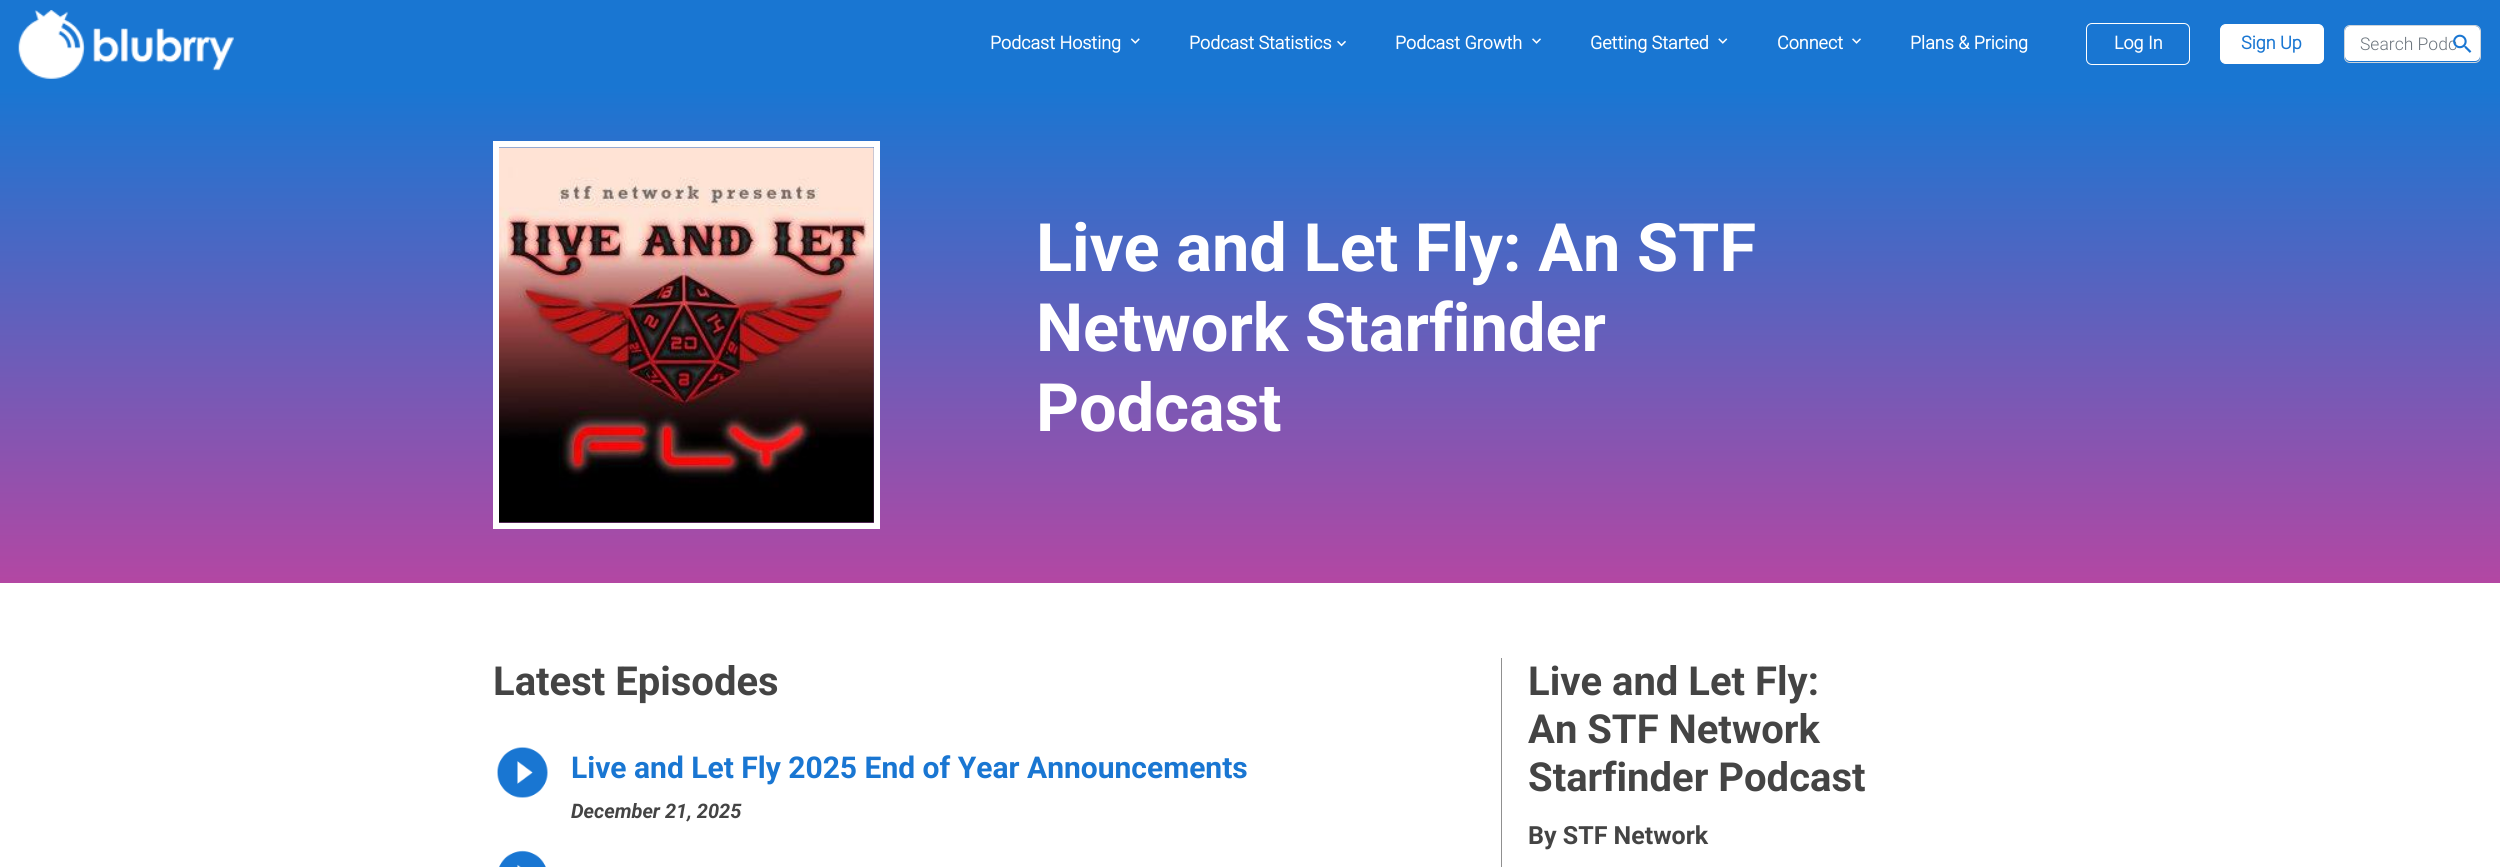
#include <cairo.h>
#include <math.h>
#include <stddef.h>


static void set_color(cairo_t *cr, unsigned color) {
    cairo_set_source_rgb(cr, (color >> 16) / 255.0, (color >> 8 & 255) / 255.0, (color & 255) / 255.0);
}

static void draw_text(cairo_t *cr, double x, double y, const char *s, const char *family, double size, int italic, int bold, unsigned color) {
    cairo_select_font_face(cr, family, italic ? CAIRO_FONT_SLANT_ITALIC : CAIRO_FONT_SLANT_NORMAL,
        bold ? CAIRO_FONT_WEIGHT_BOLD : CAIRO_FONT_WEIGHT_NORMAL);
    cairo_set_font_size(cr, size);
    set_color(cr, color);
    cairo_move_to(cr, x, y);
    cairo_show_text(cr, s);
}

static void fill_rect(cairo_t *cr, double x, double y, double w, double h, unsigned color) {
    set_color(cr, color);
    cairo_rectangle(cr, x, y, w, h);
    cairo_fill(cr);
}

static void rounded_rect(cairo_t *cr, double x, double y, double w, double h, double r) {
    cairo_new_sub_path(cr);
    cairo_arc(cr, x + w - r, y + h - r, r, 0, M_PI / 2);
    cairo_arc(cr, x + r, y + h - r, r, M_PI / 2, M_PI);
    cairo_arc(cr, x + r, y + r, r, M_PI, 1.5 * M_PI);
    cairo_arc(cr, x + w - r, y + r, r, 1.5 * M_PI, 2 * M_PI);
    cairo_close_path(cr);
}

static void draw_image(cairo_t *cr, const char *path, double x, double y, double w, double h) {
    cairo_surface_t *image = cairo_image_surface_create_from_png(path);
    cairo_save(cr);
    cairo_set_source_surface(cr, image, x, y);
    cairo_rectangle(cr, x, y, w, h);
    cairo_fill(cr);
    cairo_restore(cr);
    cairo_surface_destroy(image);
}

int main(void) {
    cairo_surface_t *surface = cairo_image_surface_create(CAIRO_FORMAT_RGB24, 2500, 867);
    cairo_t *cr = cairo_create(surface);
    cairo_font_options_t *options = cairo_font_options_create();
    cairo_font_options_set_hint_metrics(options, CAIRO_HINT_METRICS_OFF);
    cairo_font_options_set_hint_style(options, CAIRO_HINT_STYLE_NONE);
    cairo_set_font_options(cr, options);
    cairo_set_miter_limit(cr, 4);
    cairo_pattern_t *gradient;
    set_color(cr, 0xFFFFFF);
    cairo_paint(cr);
    fill_rect(cr, 0, 0, 2500, 88, 0x1976D2);
    draw_image(cr, "assets/img1.png", 18, 10, 216, 69);
    draw_text(cr, 990, 49, "Podcast Hosting", "Roboto", 18, 0, 1, 0xFFFFFF);
    draw_image(cr, "assets/img2.png", 1130, 38, 10, 6);
    draw_text(cr, 1189, 49, "Podcast Statistics", "Roboto", 18, 0, 1, 0xFFFFFF);
    draw_image(cr, "assets/img3.png", 1337, 40, 9, 7);
    draw_text(cr, 1395, 49, "Podcast Growth", "Roboto", 18, 0, 1, 0xFFFFFF);
    draw_image(cr, "assets/img4.png", 1532, 38, 9, 6);
    draw_text(cr, 1590, 49, "Getting Started", "Roboto", 18, 0, 1, 0xFFFFFF);
    draw_image(cr, "assets/img5.png", 1718, 38, 10, 6);
    draw_text(cr, 1777, 49, "Connect", "Roboto", 18, 0, 1, 0xFFFFFF);
    draw_image(cr, "assets/img4.png", 1852, 38, 9, 6);
    draw_text(cr, 1910, 49, "Plans & Pricing", "Roboto", 18, 0, 1, 0xFFFFFF);
    rounded_rect(cr, 2086.5, 23.5, 103, 41, 5.5);
    cairo_set_line_width(cr, 1);
    cairo_stroke(cr);
    draw_text(cr, 2114, 49, "Log In", "Roboto", 18, 0, 1, 0xFFFFFF);
    rounded_rect(cr, 2220.5, 24.5, 103, 39, 5.5);
    cairo_fill_preserve(cr);
    cairo_stroke(cr);
    draw_text(cr, 2241, 49, "Sign Up", "Roboto", 18, 0, 1, 0x1976D2);
    set_color(cr, 0xFFFFFF);
    rounded_rect(cr, 2345, 26, 135, 35, 5);
    cairo_fill(cr);
    rounded_rect(cr, 2344.5, 25.5, 136, 37, 5.5);
    set_color(cr, 0xCED4DA);
    cairo_stroke(cr);
    draw_text(cr, 2360, 50, "Search Podc", "Roboto Light", 17.5, 0, 0, 0x6C757D);
    draw_image(cr, "assets/img6.png", 2453, 34, 19, 19);
    gradient = cairo_pattern_create_linear(1250, 87, 1250, 583);
    cairo_pattern_add_color_stop_rgba(gradient, 0, 0.098, 0.463, 0.824, 1);
    cairo_pattern_add_color_stop_rgba(gradient, 1, 0.702, 0.278, 0.639, 1);
    cairo_set_source(cr, gradient);
    cairo_pattern_destroy(gradient);
    cairo_rectangle(cr, 0, 88, 2500, 495);
    cairo_fill(cr);
    draw_image(cr, "assets/img7.png", 499, 147, 375, 376);
    cairo_rectangle(cr, 496, 144, 381, 382);
    set_color(cr, 0xFFFFFF);
    cairo_set_line_width(cr, 6);
    cairo_stroke(cr);
    draw_text(cr, 1036, 271, "Live and Let Fly: An STF", "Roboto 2", 66.75, 0, 1, 0xFFFFFF);
    draw_text(cr, 1036, 351, "Network Starfinder", "Roboto 2", 66.75, 0, 1, 0xFFFFFF);
    draw_text(cr, 1036, 431, "Podcast", "Roboto 2", 66.75, 0, 1, 0xFFFFFF);
    fill_rect(cr, 1501, 658, 1, 209, 0x909090);
    draw_text(cr, 493, 695, "Latest Episodes", "Roboto 2", 40, 0, 1, 0x444444);
    draw_image(cr, "assets/img8.png", 497, 747, 51, 51);
    draw_text(cr, 571, 778, "Live and Let Fly 2025 End of Year Announcements", "Roboto 2", 30, 0, 1, 0x1976D2);
    draw_text(cr, 571, 818, "December 21, 2025", "Roboto", 20, 1, 1, 0x444444);
    draw_image(cr, "assets/img9.png", 499, 850, 47, 17);
    draw_text(cr, 1528, 695, "Live and Let Fly:", "Roboto 2", 40, 0, 1, 0x444444);
    draw_text(cr, 1528, 743, "An STF Network", "Roboto 2", 40, 0, 1, 0x444444);
    draw_text(cr, 1528, 791, "Starfinder Podcast", "Roboto 2", 40, 0, 1, 0x444444);
    draw_text(cr, 1528, 844, "By STF Network", "Roboto 2", 25, 0, 1, 0x444444);
    cairo_surface_write_to_png(surface, "output.png");
    cairo_font_options_destroy(options);
    cairo_destroy(cr);
    cairo_surface_destroy(surface);
    return 0;
}
